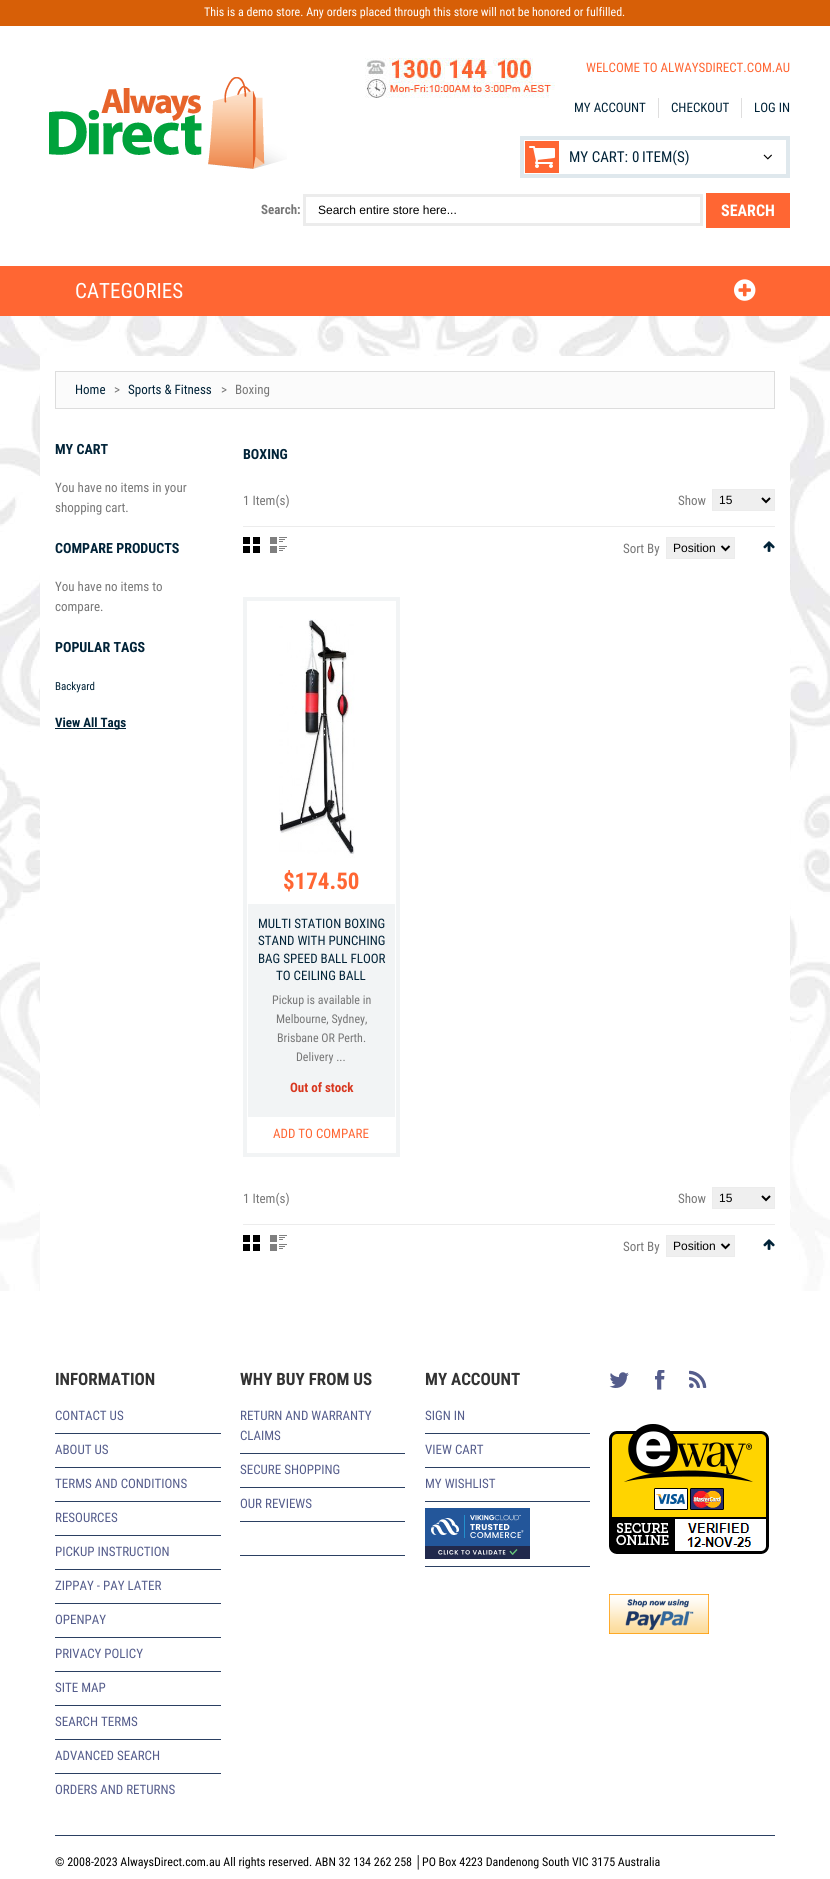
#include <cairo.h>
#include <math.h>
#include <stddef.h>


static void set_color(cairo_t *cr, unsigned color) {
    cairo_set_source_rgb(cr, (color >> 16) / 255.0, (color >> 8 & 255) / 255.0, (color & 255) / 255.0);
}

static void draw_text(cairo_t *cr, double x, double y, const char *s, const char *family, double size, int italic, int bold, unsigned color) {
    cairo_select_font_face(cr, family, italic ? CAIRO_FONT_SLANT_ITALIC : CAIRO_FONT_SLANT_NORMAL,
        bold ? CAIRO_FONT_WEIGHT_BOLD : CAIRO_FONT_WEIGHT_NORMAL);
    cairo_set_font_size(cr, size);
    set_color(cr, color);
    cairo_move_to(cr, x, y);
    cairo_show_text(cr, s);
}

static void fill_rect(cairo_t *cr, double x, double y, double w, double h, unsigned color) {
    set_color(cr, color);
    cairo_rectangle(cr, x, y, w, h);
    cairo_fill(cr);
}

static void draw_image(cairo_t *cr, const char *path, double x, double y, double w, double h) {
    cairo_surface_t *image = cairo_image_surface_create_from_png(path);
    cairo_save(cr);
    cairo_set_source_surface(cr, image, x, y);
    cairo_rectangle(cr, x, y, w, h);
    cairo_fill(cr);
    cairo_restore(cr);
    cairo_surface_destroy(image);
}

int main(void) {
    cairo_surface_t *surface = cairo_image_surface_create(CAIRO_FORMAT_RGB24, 830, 1879);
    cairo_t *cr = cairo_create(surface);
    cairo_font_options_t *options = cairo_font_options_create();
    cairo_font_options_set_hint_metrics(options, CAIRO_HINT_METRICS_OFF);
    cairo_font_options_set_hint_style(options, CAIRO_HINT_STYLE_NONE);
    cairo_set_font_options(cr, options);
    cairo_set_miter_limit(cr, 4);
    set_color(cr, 0xD75F07);
    cairo_paint(cr);
    draw_text(cr, 204, 16, "This is a demo store. Any orders placed through this store will not be honored or fulfilled.", "Roboto Condensed", 12, 0, 0, 0xFFFFFF);
    fill_rect(cr, 0, 26, 830, 240, 0xFFFFFF);
    draw_image(cr, "assets/img1.png", 365, 58, 190, 40);
    draw_text(cr, 586, 72, "WELCOME TO ALWAYSDIRECT.COM.AU", "Roboto Condensed", 13, 0, 0, 0xFF6633);
    draw_image(cr, "assets/img2.png", 49, 77, 238, 92);
    draw_text(cr, 574, 112, "MY ACCOUNT", "Roboto Condensed", 13, 0, 0, 0x012338);
    fill_rect(cr, 658, 98, 1, 20, 0xDFDEDE);
    draw_text(cr, 671, 112, "CHECKOUT", "Roboto Condensed", 13, 0, 0, 0x012338);
    fill_rect(cr, 741, 98, 1, 20, 0xDFDEDE);
    draw_text(cr, 754, 112, "LOG IN", "Roboto Condensed", 13, 0, 0, 0x012338);
    cairo_rectangle(cr, 522, 138, 266, 38);
    set_color(cr, 0xDFE8ED);
    cairo_set_line_width(cr, 4);
    cairo_stroke(cr);
    fill_rect(cr, 525, 141, 34, 32, 0xFF6633);
    draw_image(cr, "assets/img3.png", 529, 146, 26, 22);
    draw_text(cr, 569, 162, "MY CART:", "Roboto Condensed", 15, 0, 0, 0x012338);
    draw_text(cr, 632, 162, "0", "Roboto Condensed", 15, 0, 0, 0x012338);
    draw_text(cr, 642, 162, "ITEM(S)", "Roboto Condensed", 15, 0, 0, 0x012338);
    draw_image(cr, "assets/img4.png", 763, 154, 9, 6);
    draw_text(cr, 261, 214, "Search:", "Roboto Condensed", 13, 0, 1, 0x777777);
    cairo_rectangle(cr, 304.5, 195.5, 397, 29);
    set_color(cr, 0xECECEC);
    cairo_set_line_width(cr, 3);
    cairo_stroke(cr);
    draw_text(cr, 318, 214, "Search entire store here...", "Liberation Sans", 12, 0, 0, 0x000000);
    fill_rect(cr, 706, 193, 84, 35, 0xFF6633);
    draw_text(cr, 721, 216, "SEARCH", "Roboto Condensed", 16, 0, 1, 0xFFFFFF);
    fill_rect(cr, 0, 266, 830, 50, 0xFF6633);
    draw_text(cr, 75, 298, "CATEGORIES", "Roboto Condensed", 21, 0, 0, 0xFFFFFF);
    draw_image(cr, "assets/img5.png", 734, 279, 22, 22);
    fill_rect(cr, 0, 1291, 830, 588, 0xFFFFFF);
    draw_image(cr, "assets/img6.png", 0, 316, 830, 975);
    fill_rect(cr, 40, 356, 750, 935, 0xFFFFFF);
    set_color(cr, 0xFBFBFB);
    cairo_rectangle(cr, 55.5, 371.5, 719, 37);
    cairo_fill_preserve(cr);
    set_color(cr, 0xDDDDDD);
    cairo_set_line_width(cr, 1);
    cairo_stroke(cr);
    draw_text(cr, 75, 394, "Home", "Roboto Condensed", 13, 0, 0, 0x012338);
    draw_text(cr, 114, 394, ">", "Roboto Condensed", 13, 0, 0, 0x777777);
    draw_text(cr, 128, 394, "Sports & Fitness", "Roboto Condensed", 13, 0, 0, 0x012338);
    draw_text(cr, 221, 394, ">", "Roboto Condensed", 13, 0, 0, 0x777777);
    draw_text(cr, 235, 394, "Boxing", "Roboto Condensed", 13, 0, 0, 0x777777);
    draw_text(cr, 55, 454, "MY CART", "Roboto Condensed", 14, 0, 1, 0x012338);
    draw_text(cr, 55, 492, "You have no items in your", "Roboto Condensed", 13, 0, 0, 0x777777);
    draw_text(cr, 55, 512, "shopping cart.", "Roboto Condensed", 13, 0, 0, 0x777777);
    draw_text(cr, 55, 553, "COMPARE PRODUCTS", "Roboto Condensed", 14, 0, 1, 0x012338);
    draw_text(cr, 55, 591, "You have no items to", "Roboto Condensed", 13, 0, 0, 0x777777);
    draw_text(cr, 55, 611, "compare.", "Roboto Condensed", 13, 0, 0, 0x777777);
    draw_text(cr, 55, 652, "POPULAR TAGS", "Roboto Condensed", 14, 0, 1, 0x012338);
    draw_text(cr, 55, 690, "Backyard", "Roboto Condensed", 11, 0, 0, 0x012338);
    fill_rect(cr, 55, 728, 71, 1, 0x012338);
    draw_text(cr, 55, 727, "View All Tags", "Roboto Condensed", 13, 0, 1, 0x012338);
    draw_text(cr, 243, 459, "BOXING", "Roboto Condensed", 14, 0, 1, 0x012338);
    fill_rect(cr, 243, 526, 532, 1, 0xECECEC);
    draw_text(cr, 243, 505, "1 Item(s)", "Roboto Condensed", 13, 0, 0, 0x777777);
    draw_text(cr, 678, 505, "Show", "Roboto Condensed", 13, 0, 0, 0x777777);
    set_color(cr, 0xEFEFEF);
    cairo_rectangle(cr, 712.5, 489.5, 62, 21);
    cairo_fill_preserve(cr);
    set_color(cr, 0xECECEC);
    cairo_stroke(cr);
    cairo_new_path(cr);
    cairo_move_to(cr, 762, 498);
    cairo_line_to(cr, 766, 502);
    cairo_line_to(cr, 770, 498);
    set_color(cr, 0x000000);
    cairo_set_line_width(cr, 2);
    cairo_stroke(cr);
    draw_text(cr, 719, 504, "15", "Liberation Sans", 12, 0, 0, 0x000000);
    draw_image(cr, "assets/img7.png", 243, 537, 17, 16);
    draw_image(cr, "assets/img8.png", 270, 537, 17, 16);
    draw_text(cr, 623, 553, "Sort By", "Roboto Condensed", 13, 0, 0, 0x777777);
    set_color(cr, 0xEFEFEF);
    cairo_rectangle(cr, 666.5, 537.5, 68, 21);
    cairo_fill_preserve(cr);
    set_color(cr, 0xECECEC);
    cairo_set_line_width(cr, 1);
    cairo_stroke(cr);
    cairo_new_path(cr);
    cairo_move_to(cr, 721.5, 546);
    cairo_line_to(cr, 725.5, 550);
    cairo_line_to(cr, 729.5, 546);
    set_color(cr, 0x000000);
    cairo_set_line_width(cr, 2);
    cairo_stroke(cr);
    draw_text(cr, 673, 552, "Position", "Liberation Sans", 12, 0, 0, 0x000000);
    draw_image(cr, "assets/img9.png", 763, 541, 12, 11);
    cairo_rectangle(cr, 245, 599, 153, 556);
    set_color(cr, 0xF2F4F5);
    cairo_set_line_width(cr, 4);
    cairo_stroke(cr);
    draw_image(cr, "assets/img10.png", 279, 619, 76, 239);
    draw_text(cr, 283, 889, "$174.50", "Roboto Condensed", 23, 0, 1, 0xFF6633);
    fill_rect(cr, 248, 904, 147, 213, 0xF2F4F5);
    draw_text(cr, 258, 928, "MULTI STATION BOXING", "Roboto Condensed", 13, 0, 0, 0x012338);
    draw_text(cr, 258, 945, "STAND WITH PUNCHING", "Roboto Condensed", 13, 0, 0, 0x012338);
    draw_text(cr, 258, 963, "BAG SPEED BALL FLOOR", "Roboto Condensed", 13, 0, 0, 0x012338);
    draw_text(cr, 276, 980, "TO CEILING BALL", "Roboto Condensed", 13, 0, 0, 0x012338);
    draw_text(cr, 272, 1004, "Pickup is available in", "Roboto Condensed", 12, 0, 0, 0x777777);
    draw_text(cr, 276, 1023, "Melbourne, Sydney,", "Roboto Condensed", 12, 0, 0, 0x777777);
    draw_text(cr, 277, 1042, "Brisbane OR Perth.", "Roboto Condensed", 12, 0, 0, 0x777777);
    draw_text(cr, 296, 1061, "Delivery ...", "Roboto Condensed", 12, 0, 0, 0x777777);
    draw_text(cr, 290, 1092, "Out of stock", "Roboto Condensed", 13, 0, 1, 0xD83820);
    draw_text(cr, 273, 1138, "ADD TO COMPARE", "Roboto Condensed", 13, 0, 0, 0xFF6633);
    fill_rect(cr, 243, 1224, 532, 1, 0xECECEC);
    draw_text(cr, 243, 1203, "1 Item(s)", "Roboto Condensed", 13, 0, 0, 0x777777);
    draw_text(cr, 678, 1203, "Show", "Roboto Condensed", 13, 0, 0, 0x777777);
    set_color(cr, 0xEFEFEF);
    cairo_rectangle(cr, 712.5, 1187.5, 62, 21);
    cairo_fill_preserve(cr);
    set_color(cr, 0xECECEC);
    cairo_set_line_width(cr, 1);
    cairo_stroke(cr);
    cairo_new_path(cr);
    cairo_move_to(cr, 762, 1196);
    cairo_line_to(cr, 766, 1200);
    cairo_line_to(cr, 770, 1196);
    set_color(cr, 0x000000);
    cairo_set_line_width(cr, 2);
    cairo_stroke(cr);
    draw_text(cr, 719, 1202, "15", "Liberation Sans", 12, 0, 0, 0x000000);
    draw_image(cr, "assets/img7.png", 243, 1235, 17, 16);
    draw_image(cr, "assets/img8.png", 270, 1235, 17, 16);
    draw_text(cr, 623, 1251, "Sort By", "Roboto Condensed", 13, 0, 0, 0x777777);
    set_color(cr, 0xEFEFEF);
    cairo_rectangle(cr, 666.5, 1235.5, 68, 21);
    cairo_fill_preserve(cr);
    set_color(cr, 0xECECEC);
    cairo_set_line_width(cr, 1);
    cairo_stroke(cr);
    cairo_new_path(cr);
    cairo_move_to(cr, 721.5, 1244);
    cairo_line_to(cr, 725.5, 1248);
    cairo_line_to(cr, 729.5, 1244);
    set_color(cr, 0x000000);
    cairo_set_line_width(cr, 2);
    cairo_stroke(cr);
    draw_text(cr, 673, 1250, "Position", "Liberation Sans", 12, 0, 0, 0x000000);
    draw_image(cr, "assets/img9.png", 763, 1239, 12, 11);
    fill_rect(cr, 55, 1835, 720, 1, 0x2B4062);
    draw_text(cr, 55, 1385, "INFORMATION", "Roboto Condensed", 17, 0, 1, 0x333333);
    fill_rect(cr, 55, 1433, 166, 1, 0x2B4062);
    draw_text(cr, 55, 1420, "CONTACT US", "Roboto Condensed", 13, 0, 0, 0x555D8C);
    fill_rect(cr, 55, 1467, 166, 1, 0x2B4062);
    draw_text(cr, 55, 1454, "ABOUT US", "Roboto Condensed", 13, 0, 0, 0x555D8C);
    fill_rect(cr, 55, 1501, 166, 1, 0x2B4062);
    draw_text(cr, 55, 1488, "TERMS AND CONDITIONS", "Roboto Condensed", 13, 0, 0, 0x555D8C);
    fill_rect(cr, 55, 1535, 166, 1, 0x2B4062);
    draw_text(cr, 55, 1522, "RESOURCES", "Roboto Condensed", 13, 0, 0, 0x555D8C);
    fill_rect(cr, 55, 1569, 166, 1, 0x2B4062);
    draw_text(cr, 55, 1556, "PICKUP INSTRUCTION", "Roboto Condensed", 13, 0, 0, 0x555D8C);
    fill_rect(cr, 55, 1603, 166, 1, 0x2B4062);
    draw_text(cr, 55, 1590, "ZIPPAY - PAY LATER", "Roboto Condensed", 13, 0, 0, 0x555D8C);
    fill_rect(cr, 55, 1637, 166, 1, 0x2B4062);
    draw_text(cr, 55, 1624, "OPENPAY", "Roboto Condensed", 13, 0, 0, 0x555D8C);
    fill_rect(cr, 55, 1671, 166, 1, 0x2B4062);
    draw_text(cr, 55, 1658, "PRIVACY POLICY", "Roboto Condensed", 13, 0, 0, 0x555D8C);
    fill_rect(cr, 55, 1705, 166, 1, 0x2B4062);
    draw_text(cr, 55, 1692, "SITE MAP", "Roboto Condensed", 13, 0, 0, 0x555D8C);
    fill_rect(cr, 55, 1739, 166, 1, 0x2B4062);
    draw_text(cr, 55, 1726, "SEARCH TERMS", "Roboto Condensed", 13, 0, 0, 0x555D8C);
    fill_rect(cr, 55, 1773, 166, 1, 0x2B4062);
    draw_text(cr, 55, 1760, "ADVANCED SEARCH", "Roboto Condensed", 13, 0, 0, 0x555D8C);
    draw_text(cr, 55, 1794, "ORDERS AND RETURNS", "Roboto Condensed", 13, 0, 0, 0x555D8C);
    draw_text(cr, 240, 1385, "WHY BUY FROM US", "Roboto Condensed", 17, 0, 1, 0x333333);
    fill_rect(cr, 240, 1453, 165, 1, 0x2B4062);
    draw_text(cr, 240, 1420, "RETURN AND WARRANTY", "Roboto Condensed", 13, 0, 0, 0x555D8C);
    draw_text(cr, 240, 1440, "CLAIMS", "Roboto Condensed", 13, 0, 0, 0x555D8C);
    fill_rect(cr, 240, 1487, 165, 1, 0x2B4062);
    draw_text(cr, 240, 1474, "SECURE SHOPPING", "Roboto Condensed", 13, 0, 0, 0x555D8C);
    fill_rect(cr, 240, 1521, 165, 1, 0x2B4062);
    draw_text(cr, 240, 1508, "OUR REVIEWS", "Roboto Condensed", 13, 0, 0, 0x555D8C);
    fill_rect(cr, 240, 1555, 165, 1, 0x2B4062);
    draw_text(cr, 425, 1385, "MY ACCOUNT", "Roboto Condensed", 17, 0, 1, 0x333333);
    fill_rect(cr, 425, 1433, 165, 1, 0x2B4062);
    draw_text(cr, 425, 1420, "SIGN IN", "Roboto Condensed", 13, 0, 0, 0x555D8C);
    fill_rect(cr, 425, 1467, 165, 1, 0x2B4062);
    draw_text(cr, 425, 1454, "VIEW CART", "Roboto Condensed", 13, 0, 0, 0x555D8C);
    fill_rect(cr, 425, 1501, 165, 1, 0x2B4062);
    draw_text(cr, 425, 1488, "MY WISHLIST", "Roboto Condensed", 13, 0, 0, 0x555D8C);
    fill_rect(cr, 425, 1566, 165, 1, 0x2B4062);
    draw_image(cr, "assets/img11.png", 425, 1508, 105, 51);
    draw_image(cr, "assets/img12.png", 609, 1372, 20, 16);
    draw_image(cr, "assets/img13.png", 655, 1370, 10, 20);
    draw_image(cr, "assets/img14.png", 689, 1370, 18, 18);
    draw_image(cr, "assets/img15.png", 609, 1424, 160, 130);
    draw_image(cr, "assets/img16.png", 609, 1594, 100, 40);
    draw_text(cr, 55, 1866, "© 2008-2023 AlwaysDirect.com.au All rights reserved. ABN 32 134 262 258", "Roboto Condensed", 12, 0, 0, 0x000000);
    draw_text(cr, 415, 1866, "│", "Liberation Sans", 12, 0, 0, 0x000000);
    draw_text(cr, 422, 1866, "PO Box 4223 Dandenong South VIC 3175 Australia", "Roboto Condensed", 12, 0, 0, 0x000000);
    cairo_surface_write_to_png(surface, "output.png");
    cairo_font_options_destroy(options);
    cairo_destroy(cr);
    cairo_surface_destroy(surface);
    return 0;
}
